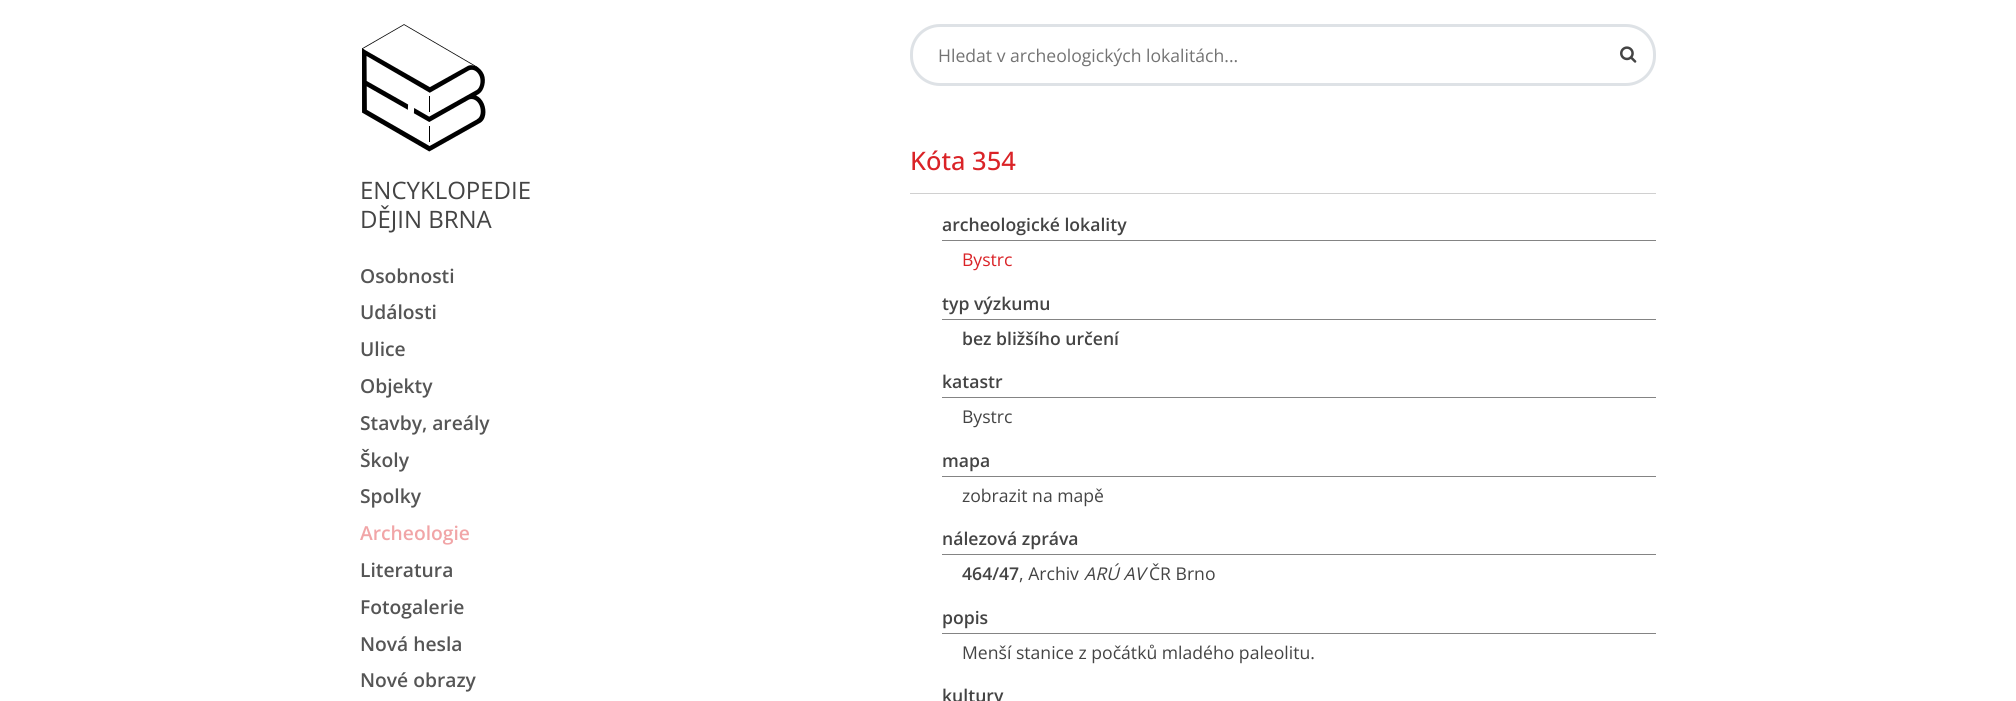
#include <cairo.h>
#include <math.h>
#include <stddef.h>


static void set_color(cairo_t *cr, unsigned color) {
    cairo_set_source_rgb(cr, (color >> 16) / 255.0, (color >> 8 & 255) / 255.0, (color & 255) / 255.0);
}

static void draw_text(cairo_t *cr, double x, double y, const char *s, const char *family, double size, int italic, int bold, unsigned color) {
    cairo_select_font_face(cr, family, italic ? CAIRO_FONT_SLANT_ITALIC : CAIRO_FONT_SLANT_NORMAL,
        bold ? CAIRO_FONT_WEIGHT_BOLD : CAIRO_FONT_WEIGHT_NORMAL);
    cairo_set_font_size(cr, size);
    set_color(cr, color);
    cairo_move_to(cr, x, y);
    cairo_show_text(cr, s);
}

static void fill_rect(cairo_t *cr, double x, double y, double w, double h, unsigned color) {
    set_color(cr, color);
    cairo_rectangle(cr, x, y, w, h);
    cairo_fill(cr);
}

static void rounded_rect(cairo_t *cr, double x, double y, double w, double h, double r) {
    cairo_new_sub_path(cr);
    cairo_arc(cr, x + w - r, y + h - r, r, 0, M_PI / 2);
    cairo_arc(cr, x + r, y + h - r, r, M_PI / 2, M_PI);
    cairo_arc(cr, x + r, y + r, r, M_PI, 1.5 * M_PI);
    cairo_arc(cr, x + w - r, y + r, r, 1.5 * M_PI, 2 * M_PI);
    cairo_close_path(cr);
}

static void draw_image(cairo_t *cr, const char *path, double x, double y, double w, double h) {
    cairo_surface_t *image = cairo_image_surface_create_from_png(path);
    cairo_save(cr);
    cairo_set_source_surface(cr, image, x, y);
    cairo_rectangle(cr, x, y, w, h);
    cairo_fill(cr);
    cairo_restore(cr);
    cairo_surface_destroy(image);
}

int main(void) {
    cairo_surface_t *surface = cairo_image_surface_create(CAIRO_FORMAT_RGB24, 2016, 701);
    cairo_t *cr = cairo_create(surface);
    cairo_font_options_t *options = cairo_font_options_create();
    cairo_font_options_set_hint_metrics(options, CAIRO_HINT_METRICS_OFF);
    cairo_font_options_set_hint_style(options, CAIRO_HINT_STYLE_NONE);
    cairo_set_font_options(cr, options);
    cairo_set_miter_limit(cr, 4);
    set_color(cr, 0xFFFFFF);
    cairo_paint(cr);
    draw_image(cr, "assets/img1.png", 362, 24, 124, 128);
    draw_text(cr, 360, 199, "ENCYKLOPEDIE", "Open Sans", 24, 0, 0, 0x444444);
    draw_text(cr, 360, 228, "DĚJIN BRNA", "Open Sans", 24, 0, 0, 0x444444);
    draw_text(cr, 360, 283, "Osobnosti", "Open Sans SemiBold", 19.25, 0, 0, 0x555555);
    draw_text(cr, 360, 319, "Události", "Open Sans SemiBold", 19.25, 0, 0, 0x555555);
    draw_text(cr, 360, 356, "Ulice", "Open Sans SemiBold", 19.25, 0, 0, 0x555555);
    draw_text(cr, 360, 393, "Objekty", "Open Sans SemiBold", 19.25, 0, 0, 0x555555);
    draw_text(cr, 360, 430, "Stavby, areály", "Open Sans SemiBold", 19.25, 0, 0, 0x555555);
    draw_text(cr, 360, 467, "Školy", "Open Sans SemiBold", 19.25, 0, 0, 0x555555);
    draw_text(cr, 360, 503, "Spolky", "Open Sans SemiBold", 19.25, 0, 0, 0x555555);
    draw_text(cr, 360, 540, "Archeologie", "Open Sans SemiBold", 19.25, 0, 0, 0xF1A5A7);
    draw_text(cr, 360, 577, "Literatura", "Open Sans SemiBold", 19.25, 0, 0, 0x555555);
    draw_text(cr, 360, 614, "Fotogalerie", "Open Sans SemiBold", 19.25, 0, 0, 0x555555);
    draw_text(cr, 360, 651, "Nová hesla", "Open Sans SemiBold", 19.25, 0, 0, 0x555555);
    draw_text(cr, 360, 687, "Nové obrazy", "Open Sans SemiBold", 19.25, 0, 0, 0x555555);
    rounded_rect(cr, 911.5, 25.5, 743, 59, 28.5);
    set_color(cr, 0xDEE2E6);
    cairo_set_line_width(cr, 3);
    cairo_stroke(cr);
    draw_text(cr, 938, 62, "Hledat v archeologických lokalitách...", "Open Sans", 17.6, 0, 0, 0x737373);
    draw_image(cr, "assets/img2.png", 1620, 46, 17, 17);
    draw_text(cr, 910, 170, "Kóta 354", "Open Sans Medium", 25.5, 0, 0, 0xDA2327);
    fill_rect(cr, 910, 193, 746, 1, 0xD0D0D0);
    fill_rect(cr, 942, 240, 714, 1, 0x848484);
    draw_text(cr, 942, 231, "archeologické lokality", "Open Sans SemiBold", 17.6, 0, 0, 0x444444);
    draw_text(cr, 962, 266, "Bystrc", "Open Sans", 17.6, 0, 0, 0xDA2327);
    fill_rect(cr, 942, 319, 714, 1, 0x848484);
    draw_text(cr, 942, 310, "typ výzkumu", "Open Sans SemiBold", 17.6, 0, 0, 0x444444);
    draw_text(cr, 962, 345, "bez bližšího určení", "Open Sans SemiBold", 17.6, 0, 0, 0x444444);
    fill_rect(cr, 942, 397, 714, 1, 0x848484);
    draw_text(cr, 942, 388, "katastr", "Open Sans SemiBold", 17.6, 0, 0, 0x444444);
    draw_text(cr, 962, 423, "Bystrc", "Open Sans", 17.6, 0, 0, 0x444444);
    fill_rect(cr, 942, 476, 714, 1, 0x848484);
    draw_text(cr, 942, 467, "mapa", "Open Sans SemiBold", 17.6, 0, 0, 0x444444);
    draw_text(cr, 962, 502, "zobrazit na mapě", "Open Sans", 17.6, 0, 0, 0x444444);
    fill_rect(cr, 942, 554, 714, 1, 0x848484);
    draw_text(cr, 942, 545, "nálezová zpráva", "Open Sans SemiBold", 17.6, 0, 0, 0x444444);
    draw_text(cr, 962, 580, "464/47", "Open Sans SemiBold", 17.6, 0, 0, 0x444444);
    draw_text(cr, 1019, 580, ", Archiv", "Open Sans", 17.6, 0, 0, 0x444444);
    draw_text(cr, 1084, 580, "ARÚ AV", "Open Sans", 17.6, 1, 0, 0x444444);
    draw_text(cr, 1149, 580, "ČR Brno", "Open Sans", 17.6, 0, 0, 0x444444);
    fill_rect(cr, 942, 633, 714, 1, 0x848484);
    draw_text(cr, 942, 624, "popis", "Open Sans SemiBold", 17.6, 0, 0, 0x444444);
    draw_text(cr, 962, 659, "Menší stanice z počátků mladého paleolitu.", "Open Sans", 17.6, 0, 0, 0x444444);
    draw_text(cr, 942, 702, "kultury", "Open Sans SemiBold", 17.6, 0, 0, 0x444444);
    cairo_surface_write_to_png(surface, "output.png");
    cairo_font_options_destroy(options);
    cairo_destroy(cr);
    cairo_surface_destroy(surface);
    return 0;
}
